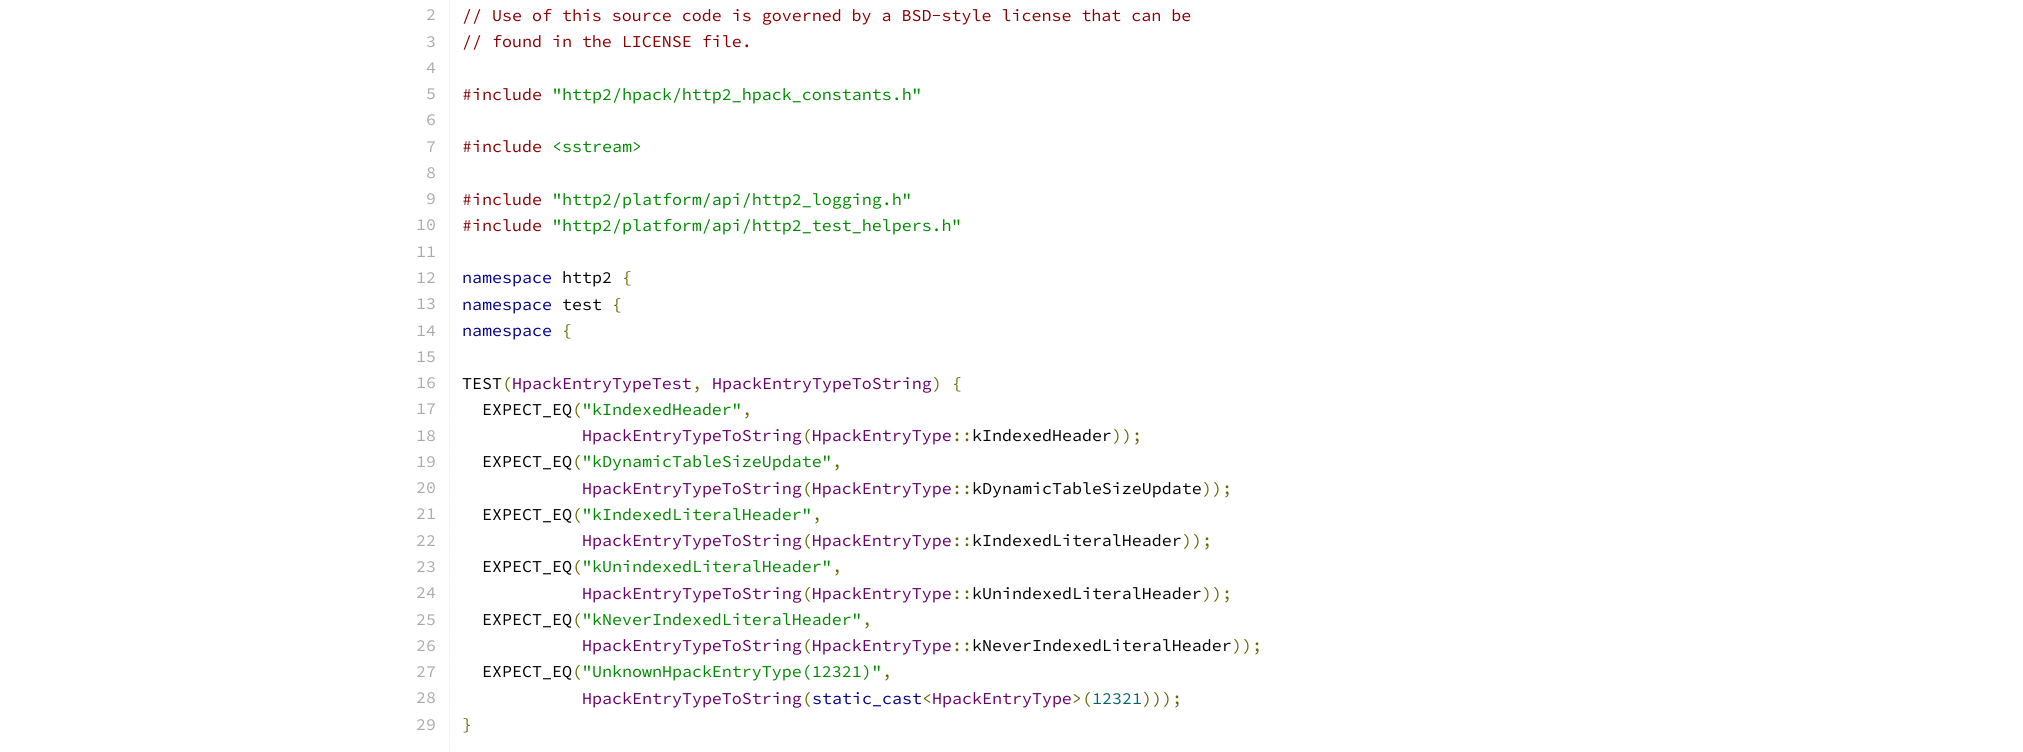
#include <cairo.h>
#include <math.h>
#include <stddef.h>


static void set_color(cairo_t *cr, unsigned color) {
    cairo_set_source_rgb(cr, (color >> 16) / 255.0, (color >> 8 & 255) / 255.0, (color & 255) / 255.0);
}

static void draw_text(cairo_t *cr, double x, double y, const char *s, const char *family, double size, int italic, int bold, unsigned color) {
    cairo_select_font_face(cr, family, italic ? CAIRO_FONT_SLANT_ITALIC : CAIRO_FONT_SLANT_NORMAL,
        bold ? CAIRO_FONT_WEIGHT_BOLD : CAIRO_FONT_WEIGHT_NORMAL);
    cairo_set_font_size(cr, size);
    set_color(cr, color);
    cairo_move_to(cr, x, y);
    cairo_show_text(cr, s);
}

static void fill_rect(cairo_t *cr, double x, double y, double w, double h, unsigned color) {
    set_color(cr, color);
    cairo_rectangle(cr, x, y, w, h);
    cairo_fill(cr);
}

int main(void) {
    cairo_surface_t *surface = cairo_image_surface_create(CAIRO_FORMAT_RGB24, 2023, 752);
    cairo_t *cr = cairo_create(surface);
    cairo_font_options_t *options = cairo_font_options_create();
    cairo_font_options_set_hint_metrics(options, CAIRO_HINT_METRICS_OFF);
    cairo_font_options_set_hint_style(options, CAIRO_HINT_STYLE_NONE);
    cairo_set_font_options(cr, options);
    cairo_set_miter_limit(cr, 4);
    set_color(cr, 0xFFFFFF);
    cairo_paint(cr);
    fill_rect(cr, 449, 0, 1, 423, 0xF1F2F3);
    draw_text(cr, 426, 20, "2", "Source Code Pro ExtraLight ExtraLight", 16.65, 0, 0, 0xAAAAAA);
    draw_text(cr, 462, 21, "// Use of this source code is governed by a BSD-style license that can be", "Source Code Pro ExtraLight ExtraLight", 16.65, 0, 0, 0x880000);
    draw_text(cr, 426, 47, "3", "Source Code Pro ExtraLight ExtraLight", 16.65, 0, 0, 0xAAAAAA);
    draw_text(cr, 462, 47, "// found in the LICENSE file.", "Source Code Pro ExtraLight ExtraLight", 16.65, 0, 0, 0x880000);
    draw_text(cr, 426, 73, "4", "Source Code Pro ExtraLight ExtraLight", 16.65, 0, 0, 0xAAAAAA);
    draw_text(cr, 426, 99, "5", "Source Code Pro ExtraLight ExtraLight", 16.65, 0, 0, 0xAAAAAA);
    draw_text(cr, 462, 100, "#include", "Source Code Pro ExtraLight ExtraLight", 16.65, 0, 0, 0x880000);
    draw_text(cr, 552, 100, "\"http2/hpack/http2_hpack_constants.h\"", "Source Code Pro ExtraLight ExtraLight", 16.65, 0, 0, 0x008800);
    draw_text(cr, 426, 125, "6", "Source Code Pro ExtraLight ExtraLight", 16.65, 0, 0, 0xAAAAAA);
    draw_text(cr, 426, 152, "7", "Source Code Pro ExtraLight ExtraLight", 16.65, 0, 0, 0xAAAAAA);
    draw_text(cr, 462, 152, "#include", "Source Code Pro ExtraLight ExtraLight", 16.65, 0, 0, 0x880000);
    draw_text(cr, 552, 152, "<sstream>", "Source Code Pro ExtraLight ExtraLight", 16.65, 0, 0, 0x008800);
    draw_text(cr, 426, 178, "8", "Source Code Pro ExtraLight ExtraLight", 16.65, 0, 0, 0xAAAAAA);
    draw_text(cr, 426, 204, "9", "Source Code Pro ExtraLight ExtraLight", 16.65, 0, 0, 0xAAAAAA);
    draw_text(cr, 462, 205, "#include", "Source Code Pro ExtraLight ExtraLight", 16.65, 0, 0, 0x880000);
    draw_text(cr, 552, 205, "\"http2/platform/api/http2_logging.h\"", "Source Code Pro ExtraLight ExtraLight", 16.65, 0, 0, 0x008800);
    draw_text(cr, 416, 230, "10", "Source Code Pro ExtraLight ExtraLight", 16.65, 0, 0, 0xAAAAAA);
    draw_text(cr, 462, 231, "#include", "Source Code Pro ExtraLight ExtraLight", 16.65, 0, 0, 0x880000);
    draw_text(cr, 552, 231, "\"http2/platform/api/http2_test_helpers.h\"", "Source Code Pro ExtraLight ExtraLight", 16.65, 0, 0, 0x008800);
    draw_text(cr, 416, 257, "11", "Source Code Pro ExtraLight ExtraLight", 16.65, 0, 0, 0xAAAAAA);
    draw_text(cr, 416, 283, "12", "Source Code Pro ExtraLight ExtraLight", 16.65, 0, 0, 0xAAAAAA);
    draw_text(cr, 462, 283, "namespace", "Source Code Pro ExtraLight ExtraLight", 16.65, 0, 0, 0x000088);
    draw_text(cr, 562, 283, "http2", "Source Code Pro ExtraLight ExtraLight", 16.65, 0, 0, 0x000000);
    draw_text(cr, 622, 283, "{", "Source Code Pro ExtraLight ExtraLight", 16.65, 0, 0, 0x666600);
    draw_text(cr, 416, 309, "13", "Source Code Pro ExtraLight ExtraLight", 16.65, 0, 0, 0xAAAAAA);
    draw_text(cr, 462, 310, "namespace", "Source Code Pro ExtraLight ExtraLight", 16.65, 0, 0, 0x000088);
    draw_text(cr, 562, 310, "test", "Source Code Pro ExtraLight ExtraLight", 16.65, 0, 0, 0x000000);
    draw_text(cr, 612, 310, "{", "Source Code Pro ExtraLight ExtraLight", 16.65, 0, 0, 0x666600);
    draw_text(cr, 416, 336, "14", "Source Code Pro ExtraLight ExtraLight", 16.65, 0, 0, 0xAAAAAA);
    draw_text(cr, 462, 336, "namespace", "Source Code Pro ExtraLight ExtraLight", 16.65, 0, 0, 0x000088);
    draw_text(cr, 562, 336, "{", "Source Code Pro ExtraLight ExtraLight", 16.65, 0, 0, 0x666600);
    draw_text(cr, 416, 362, "15", "Source Code Pro ExtraLight ExtraLight", 16.65, 0, 0, 0xAAAAAA);
    draw_text(cr, 416, 388, "16", "Source Code Pro ExtraLight ExtraLight", 16.65, 0, 0, 0xAAAAAA);
    draw_text(cr, 462, 389, "TEST", "Source Code Pro ExtraLight ExtraLight", 16.65, 0, 0, 0x000000);
    draw_text(cr, 502, 389, "(", "Source Code Pro ExtraLight ExtraLight", 16.65, 0, 0, 0x666600);
    draw_text(cr, 512, 389, "HpackEntryTypeTest", "Source Code Pro ExtraLight ExtraLight", 16.65, 0, 0, 0x660066);
    draw_text(cr, 692, 389, ",", "Source Code Pro ExtraLight ExtraLight", 16.65, 0, 0, 0x666600);
    draw_text(cr, 712, 389, "HpackEntryTypeToString", "Source Code Pro ExtraLight ExtraLight", 16.65, 0, 0, 0x660066);
    draw_text(cr, 932, 389, ") {", "Source Code Pro ExtraLight ExtraLight", 16.65, 0, 0, 0x666600);
    draw_text(cr, 416, 414, "17", "Source Code Pro ExtraLight ExtraLight", 16.65, 0, 0, 0xAAAAAA);
    draw_text(cr, 482, 415, "EXPECT_EQ", "Source Code Pro ExtraLight ExtraLight", 16.65, 0, 0, 0x000000);
    draw_text(cr, 572, 415, "(", "Source Code Pro ExtraLight ExtraLight", 16.65, 0, 0, 0x666600);
    draw_text(cr, 582, 415, "\"kIndexedHeader\"", "Source Code Pro ExtraLight ExtraLight", 16.65, 0, 0, 0x008800);
    draw_text(cr, 742, 415, ",", "Source Code Pro ExtraLight ExtraLight", 16.65, 0, 0, 0x666600);
    fill_rect(cr, 449, 424, 1, 25, 0xF1F2F3);
    draw_text(cr, 416, 441, "18", "Source Code Pro ExtraLight ExtraLight", 16.65, 0, 0, 0xAAAAAA);
    draw_text(cr, 582, 441, "HpackEntryTypeToString HpackEntryType", "Source Code Pro ExtraLight ExtraLight", 16.65, 0, 0, 0x660066);
    draw_text(cr, 802, 441, "(", "Source Code Pro ExtraLight ExtraLight", 16.65, 0, 0, 0x666600);
    draw_text(cr, 1112, 441, "));", "Source Code Pro ExtraLight ExtraLight", 16.65, 0, 0, 0x666600);
    draw_text(cr, 952, 441, "::", "Source Code Pro ExtraLight ExtraLight", 16.65, 0, 0, 0x666600);
    draw_text(cr, 972, 441, "kIndexedHeader", "Source Code Pro ExtraLight ExtraLight", 16.65, 0, 0, 0x000000);
    fill_rect(cr, 449, 450, 1, 25, 0xF1F2F3);
    draw_text(cr, 416, 467, "19", "Source Code Pro ExtraLight ExtraLight", 16.65, 0, 0, 0xAAAAAA);
    draw_text(cr, 482, 467, "EXPECT_EQ", "Source Code Pro ExtraLight ExtraLight", 16.65, 0, 0, 0x000000);
    draw_text(cr, 572, 467, "(", "Source Code Pro ExtraLight ExtraLight", 16.65, 0, 0, 0x666600);
    draw_text(cr, 582, 467, "\"kDynamicTableSizeUpdate\"", "Source Code Pro ExtraLight ExtraLight", 16.65, 0, 0, 0x008800);
    draw_text(cr, 832, 467, ",", "Source Code Pro ExtraLight ExtraLight", 16.65, 0, 0, 0x666600);
    fill_rect(cr, 449, 476, 1, 25, 0xF1F2F3);
    draw_text(cr, 416, 493, "20", "Source Code Pro ExtraLight ExtraLight", 16.65, 0, 0, 0xAAAAAA);
    draw_text(cr, 582, 494, "HpackEntryTypeToString HpackEntryType", "Source Code Pro ExtraLight ExtraLight", 16.65, 0, 0, 0x660066);
    draw_text(cr, 802, 494, "(", "Source Code Pro ExtraLight ExtraLight", 16.65, 0, 0, 0x666600);
    draw_text(cr, 1202, 494, "));", "Source Code Pro ExtraLight ExtraLight", 16.65, 0, 0, 0x666600);
    draw_text(cr, 952, 494, "::", "Source Code Pro ExtraLight ExtraLight", 16.65, 0, 0, 0x666600);
    draw_text(cr, 972, 494, "kDynamicTableSizeUpdate", "Source Code Pro ExtraLight ExtraLight", 16.65, 0, 0, 0x000000);
    fill_rect(cr, 449, 503, 1, 25, 0xF1F2F3);
    draw_text(cr, 416, 519, "21", "Source Code Pro ExtraLight ExtraLight", 16.65, 0, 0, 0xAAAAAA);
    draw_text(cr, 482, 520, "EXPECT_EQ", "Source Code Pro ExtraLight ExtraLight", 16.65, 0, 0, 0x000000);
    draw_text(cr, 572, 520, "(", "Source Code Pro ExtraLight ExtraLight", 16.65, 0, 0, 0x666600);
    draw_text(cr, 582, 520, "\"kIndexedLiteralHeader\"", "Source Code Pro ExtraLight ExtraLight", 16.65, 0, 0, 0x008800);
    draw_text(cr, 812, 520, ",", "Source Code Pro ExtraLight ExtraLight", 16.65, 0, 0, 0x666600);
    fill_rect(cr, 449, 529, 1, 25, 0xF1F2F3);
    draw_text(cr, 416, 546, "22", "Source Code Pro ExtraLight ExtraLight", 16.65, 0, 0, 0xAAAAAA);
    draw_text(cr, 582, 546, "HpackEntryTypeToString HpackEntryType", "Source Code Pro ExtraLight ExtraLight", 16.65, 0, 0, 0x660066);
    draw_text(cr, 802, 546, "(", "Source Code Pro ExtraLight ExtraLight", 16.65, 0, 0, 0x666600);
    draw_text(cr, 1182, 546, "));", "Source Code Pro ExtraLight ExtraLight", 16.65, 0, 0, 0x666600);
    draw_text(cr, 952, 546, "::", "Source Code Pro ExtraLight ExtraLight", 16.65, 0, 0, 0x666600);
    draw_text(cr, 972, 546, "kIndexedLiteralHeader", "Source Code Pro ExtraLight ExtraLight", 16.65, 0, 0, 0x000000);
    fill_rect(cr, 449, 555, 1, 25, 0xF1F2F3);
    draw_text(cr, 416, 572, "23", "Source Code Pro ExtraLight ExtraLight", 16.65, 0, 0, 0xAAAAAA);
    draw_text(cr, 482, 572, "EXPECT_EQ", "Source Code Pro ExtraLight ExtraLight", 16.65, 0, 0, 0x000000);
    draw_text(cr, 572, 572, "(", "Source Code Pro ExtraLight ExtraLight", 16.65, 0, 0, 0x666600);
    draw_text(cr, 582, 572, "\"kUnindexedLiteralHeader\"", "Source Code Pro ExtraLight ExtraLight", 16.65, 0, 0, 0x008800);
    draw_text(cr, 832, 572, ",", "Source Code Pro ExtraLight ExtraLight", 16.65, 0, 0, 0x666600);
    fill_rect(cr, 449, 581, 1, 25, 0xF1F2F3);
    draw_text(cr, 416, 598, "24", "Source Code Pro ExtraLight ExtraLight", 16.65, 0, 0, 0xAAAAAA);
    draw_text(cr, 582, 599, "HpackEntryTypeToString HpackEntryType", "Source Code Pro ExtraLight ExtraLight", 16.65, 0, 0, 0x660066);
    draw_text(cr, 802, 599, "(", "Source Code Pro ExtraLight ExtraLight", 16.65, 0, 0, 0x666600);
    draw_text(cr, 1202, 599, "));", "Source Code Pro ExtraLight ExtraLight", 16.65, 0, 0, 0x666600);
    draw_text(cr, 952, 599, "::", "Source Code Pro ExtraLight ExtraLight", 16.65, 0, 0, 0x666600);
    draw_text(cr, 972, 599, "kUnindexedLiteralHeader", "Source Code Pro ExtraLight ExtraLight", 16.65, 0, 0, 0x000000);
    fill_rect(cr, 449, 608, 1, 25, 0xF1F2F3);
    draw_text(cr, 416, 625, "25", "Source Code Pro ExtraLight ExtraLight", 16.65, 0, 0, 0xAAAAAA);
    draw_text(cr, 482, 625, "EXPECT_EQ", "Source Code Pro ExtraLight ExtraLight", 16.65, 0, 0, 0x000000);
    draw_text(cr, 572, 625, "(", "Source Code Pro ExtraLight ExtraLight", 16.65, 0, 0, 0x666600);
    draw_text(cr, 582, 625, "\"kNeverIndexedLiteralHeader\"", "Source Code Pro ExtraLight ExtraLight", 16.65, 0, 0, 0x008800);
    draw_text(cr, 862, 625, ",", "Source Code Pro ExtraLight ExtraLight", 16.65, 0, 0, 0x666600);
    fill_rect(cr, 449, 634, 1, 25, 0xF1F2F3);
    draw_text(cr, 416, 651, "26", "Source Code Pro ExtraLight ExtraLight", 16.65, 0, 0, 0xAAAAAA);
    draw_text(cr, 582, 651, "HpackEntryTypeToString HpackEntryType", "Source Code Pro ExtraLight ExtraLight", 16.65, 0, 0, 0x660066);
    draw_text(cr, 802, 651, "(", "Source Code Pro ExtraLight ExtraLight", 16.65, 0, 0, 0x666600);
    draw_text(cr, 1232, 651, "));", "Source Code Pro ExtraLight ExtraLight", 16.65, 0, 0, 0x666600);
    draw_text(cr, 952, 651, "::", "Source Code Pro ExtraLight ExtraLight", 16.65, 0, 0, 0x666600);
    draw_text(cr, 972, 651, "kNeverIndexedLiteralHeader", "Source Code Pro ExtraLight ExtraLight", 16.65, 0, 0, 0x000000);
    fill_rect(cr, 449, 660, 1, 25, 0xF1F2F3);
    draw_text(cr, 416, 677, "27", "Source Code Pro ExtraLight ExtraLight", 16.65, 0, 0, 0xAAAAAA);
    draw_text(cr, 482, 677, "EXPECT_EQ", "Source Code Pro ExtraLight ExtraLight", 16.65, 0, 0, 0x000000);
    draw_text(cr, 572, 677, "(", "Source Code Pro ExtraLight ExtraLight", 16.65, 0, 0, 0x666600);
    draw_text(cr, 582, 677, "\"UnknownHpackEntryType(12321)\"", "Source Code Pro ExtraLight ExtraLight", 16.65, 0, 0, 0x008800);
    draw_text(cr, 882, 677, ",", "Source Code Pro ExtraLight ExtraLight", 16.65, 0, 0, 0x666600);
    fill_rect(cr, 449, 686, 1, 25, 0xF1F2F3);
    draw_text(cr, 416, 703, "28", "Source Code Pro ExtraLight ExtraLight", 16.65, 0, 0, 0xAAAAAA);
    draw_text(cr, 582, 704, "HpackEntryTypeToString", "Source Code Pro ExtraLight ExtraLight", 16.65, 0, 0, 0x660066);
    draw_text(cr, 802, 704, "(", "Source Code Pro ExtraLight ExtraLight", 16.65, 0, 0, 0x666600);
    draw_text(cr, 812, 704, "static_cast", "Source Code Pro ExtraLight ExtraLight", 16.65, 0, 0, 0x000088);
    draw_text(cr, 922, 704, "<", "Source Code Pro ExtraLight ExtraLight", 16.65, 0, 0, 0x666600);
    draw_text(cr, 932, 704, "HpackEntryType", "Source Code Pro ExtraLight ExtraLight", 16.65, 0, 0, 0x660066);
    draw_text(cr, 1072, 704, ">(", "Source Code Pro ExtraLight ExtraLight", 16.65, 0, 0, 0x666600);
    draw_text(cr, 1092, 704, "12321", "Source Code Pro ExtraLight ExtraLight", 16.65, 0, 0, 0x006666);
    draw_text(cr, 1142, 704, ")));", "Source Code Pro ExtraLight ExtraLight", 16.65, 0, 0, 0x666600);
    fill_rect(cr, 449, 713, 1, 25, 0xF1F2F3);
    draw_text(cr, 416, 730, "29", "Source Code Pro ExtraLight ExtraLight", 16.65, 0, 0, 0xAAAAAA);
    draw_text(cr, 462, 730, "}", "Source Code Pro ExtraLight ExtraLight", 16.65, 0, 0, 0x666600);
    fill_rect(cr, 449, 739, 1, 13, 0xF1F2F3);
    cairo_surface_write_to_png(surface, "output.png");
    cairo_font_options_destroy(options);
    cairo_destroy(cr);
    cairo_surface_destroy(surface);
    return 0;
}
